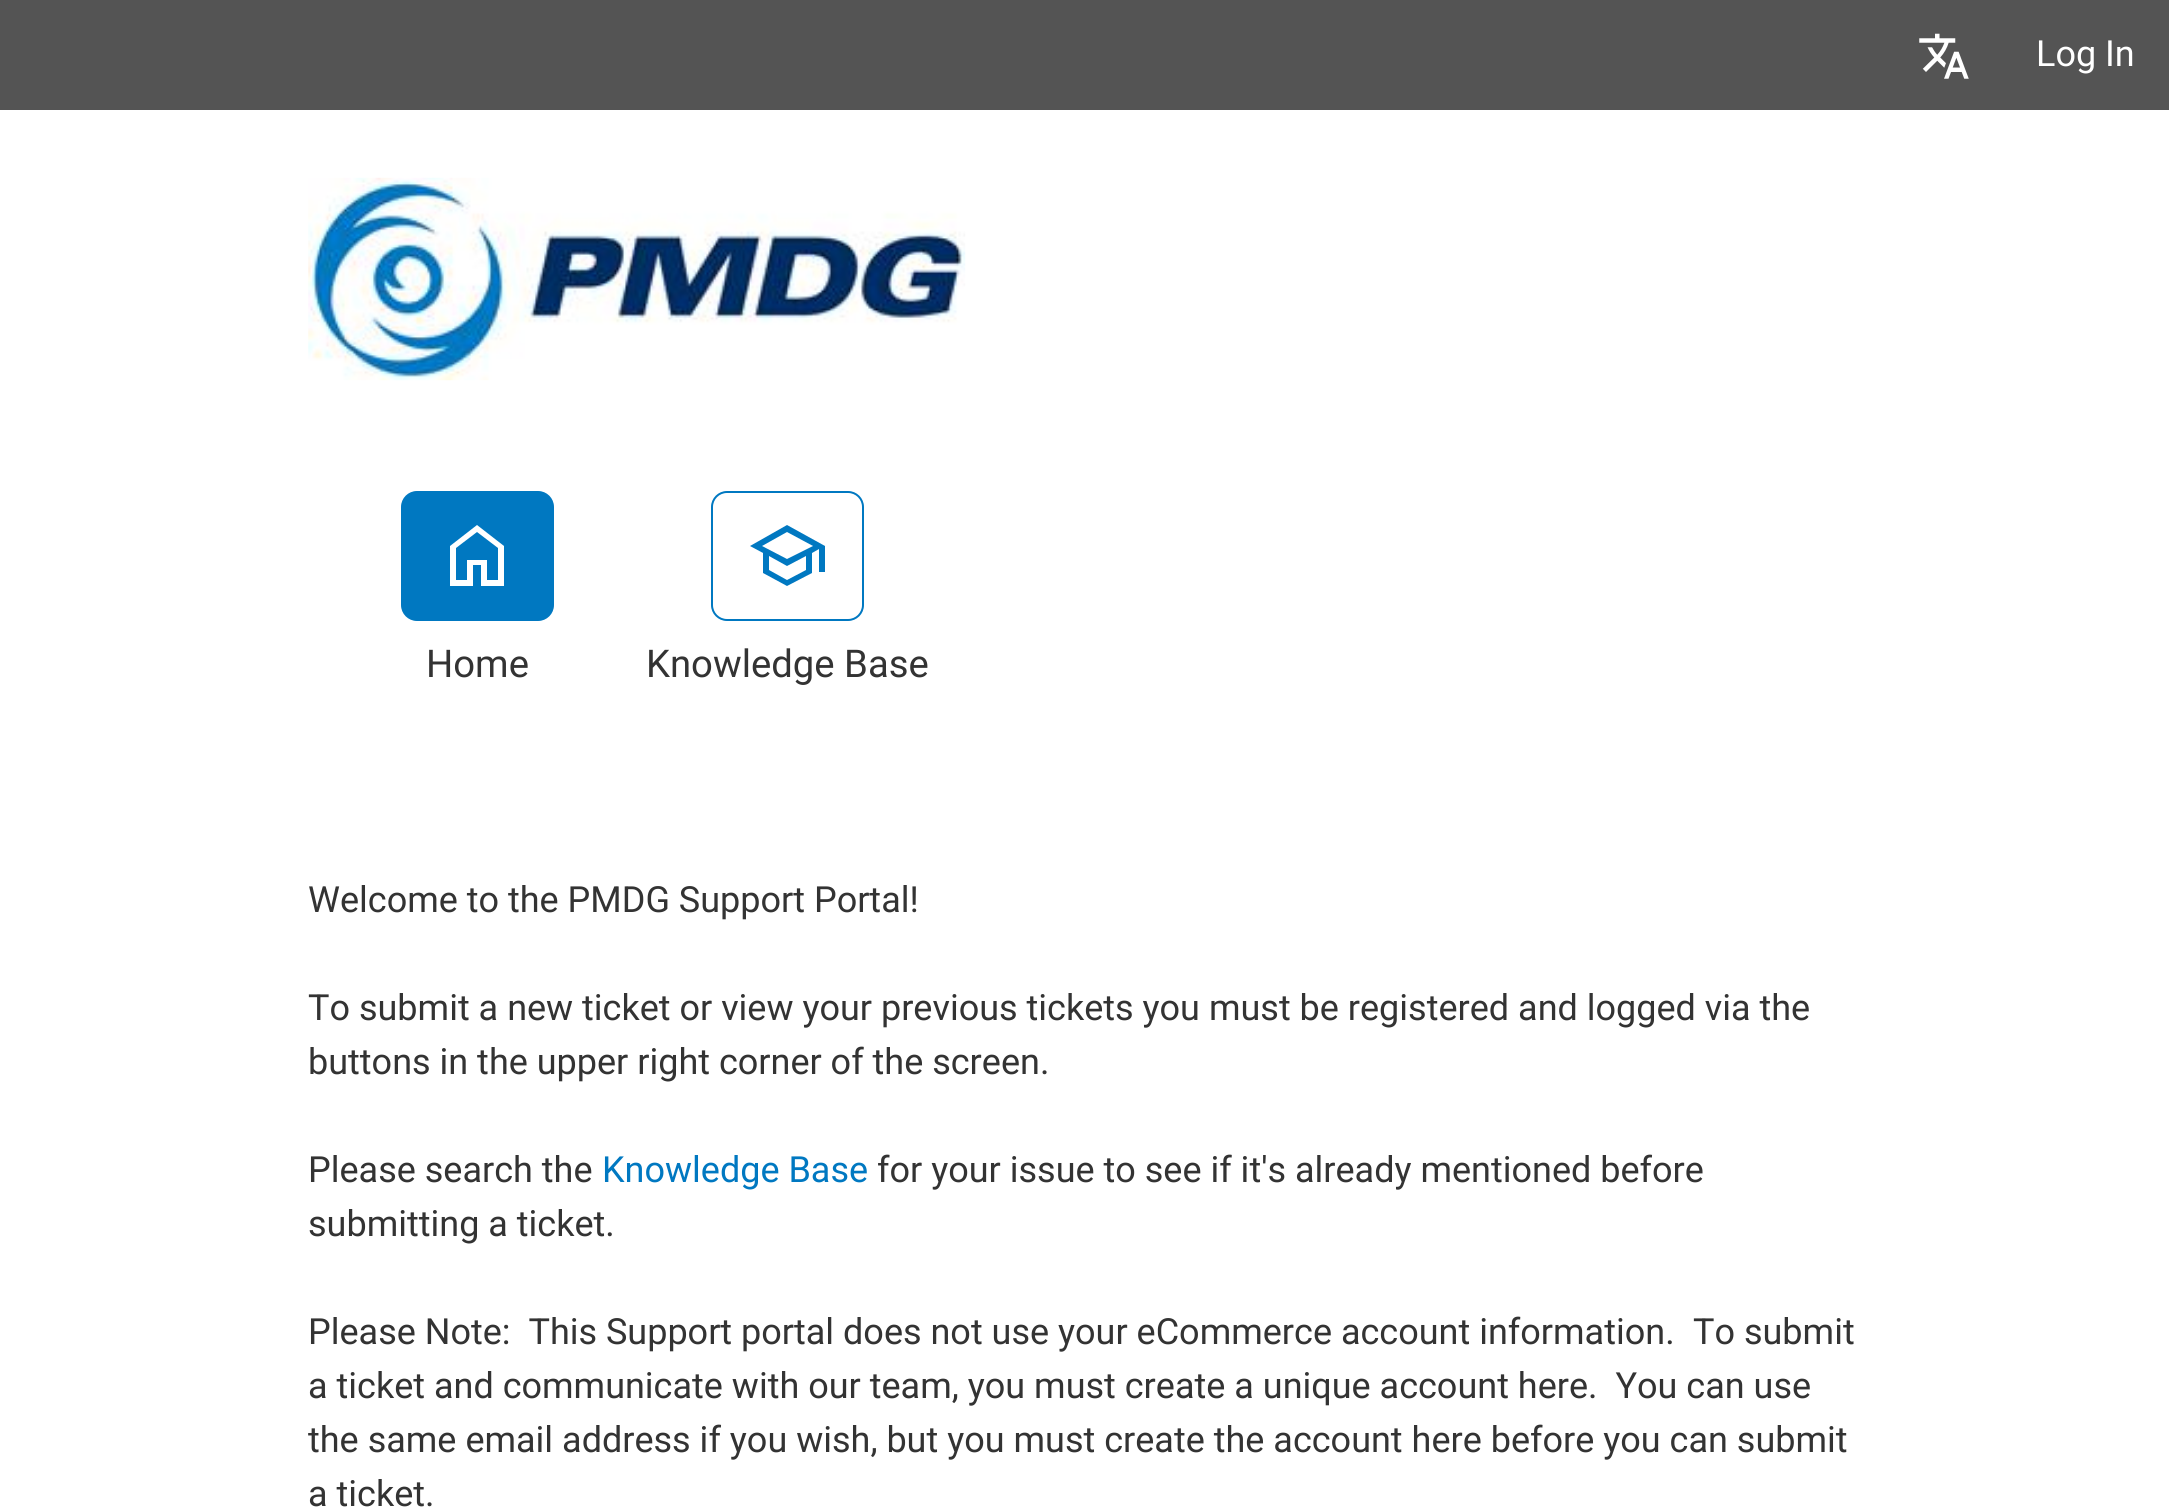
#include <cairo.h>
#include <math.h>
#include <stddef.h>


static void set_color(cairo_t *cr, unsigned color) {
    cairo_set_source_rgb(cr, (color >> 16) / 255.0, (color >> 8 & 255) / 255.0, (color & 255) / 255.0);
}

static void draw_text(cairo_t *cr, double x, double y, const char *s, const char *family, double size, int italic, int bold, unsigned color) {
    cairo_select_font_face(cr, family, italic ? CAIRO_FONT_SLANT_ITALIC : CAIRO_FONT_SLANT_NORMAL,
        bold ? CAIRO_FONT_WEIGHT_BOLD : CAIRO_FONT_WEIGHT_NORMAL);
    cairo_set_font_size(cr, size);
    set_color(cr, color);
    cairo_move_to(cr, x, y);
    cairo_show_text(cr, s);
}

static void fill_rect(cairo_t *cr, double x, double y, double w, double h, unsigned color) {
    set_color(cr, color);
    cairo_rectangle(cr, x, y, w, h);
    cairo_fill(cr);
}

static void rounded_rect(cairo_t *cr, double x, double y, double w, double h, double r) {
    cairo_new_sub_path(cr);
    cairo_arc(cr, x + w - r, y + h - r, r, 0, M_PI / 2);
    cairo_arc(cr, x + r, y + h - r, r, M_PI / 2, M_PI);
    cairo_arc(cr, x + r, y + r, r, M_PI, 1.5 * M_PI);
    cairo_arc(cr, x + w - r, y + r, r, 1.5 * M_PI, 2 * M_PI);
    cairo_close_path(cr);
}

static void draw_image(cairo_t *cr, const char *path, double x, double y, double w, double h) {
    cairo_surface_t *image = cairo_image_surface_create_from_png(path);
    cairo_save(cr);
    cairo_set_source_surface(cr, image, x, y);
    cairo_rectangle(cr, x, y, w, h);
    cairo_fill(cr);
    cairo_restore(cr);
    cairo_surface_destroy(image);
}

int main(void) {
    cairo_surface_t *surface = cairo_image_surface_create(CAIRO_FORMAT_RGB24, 2169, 1507);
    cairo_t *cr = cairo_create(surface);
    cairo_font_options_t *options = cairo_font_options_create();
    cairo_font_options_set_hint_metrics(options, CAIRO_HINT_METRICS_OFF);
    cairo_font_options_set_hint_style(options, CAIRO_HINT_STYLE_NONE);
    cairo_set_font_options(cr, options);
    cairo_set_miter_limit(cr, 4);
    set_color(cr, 0xFFFFFF);
    cairo_paint(cr);
    fill_rect(cr, 0, 0, 2169, 110, 0x545454);
    draw_image(cr, "assets/img1.png", 1919, 33, 50, 46);
    draw_text(cr, 2036, 66, "Log In", "Roboto", 36, 0, 0, 0xFFFFFF);
    draw_image(cr, "assets/img2.png", 308, 177, 658, 204);
    set_color(cr, 0x0078C1);
    rounded_rect(cr, 402, 492, 151, 128, 15);
    cairo_fill_preserve(cr);
    cairo_stroke(cr);
    set_color(cr, 0xFFFFFF);
    cairo_new_path(cr);
    cairo_move_to(cr, 456, 580);
    cairo_line_to(cr, 467, 580);
    cairo_line_to(cr, 467, 560);
    cairo_line_to(cr, 487, 560);
    cairo_line_to(cr, 487, 580);
    cairo_line_to(cr, 498, 580);
    cairo_line_to(cr, 498, 548);
    cairo_line_to(cr, 477, 532);
    cairo_line_to(cr, 456, 548);
    cairo_close_path(cr);
    cairo_move_to(cr, 450, 586);
    cairo_line_to(cr, 450, 546);
    cairo_line_to(cr, 477, 525);
    cairo_line_to(cr, 504, 546);
    cairo_line_to(cr, 504, 586);
    cairo_line_to(cr, 481, 586);
    cairo_line_to(cr, 481, 565);
    cairo_line_to(cr, 473, 565);
    cairo_line_to(cr, 473, 586);
    cairo_close_path(cr);
    cairo_move_to(cr, 477, 556);
    cairo_close_path(cr);
    cairo_fill(cr);
    draw_text(cr, 426, 677, "Home", "Roboto", 38.25, 0, 0, 0x333333);
    rounded_rect(cr, 712, 492, 151, 128, 15);
    set_color(cr, 0x0078C1);
    cairo_stroke(cr);
    cairo_new_path(cr);
    cairo_move_to(cr, 787, 586);
    cairo_line_to(cr, 763, 573);
    cairo_line_to(cr, 763, 553);
    cairo_line_to(cr, 750, 546);
    cairo_line_to(cr, 787, 525);
    cairo_line_to(cr, 825, 546);
    cairo_line_to(cr, 825, 572);
    cairo_line_to(cr, 819, 572);
    cairo_line_to(cr, 819, 549);
    cairo_line_to(cr, 812, 553);
    cairo_line_to(cr, 812, 573);
    cairo_close_path(cr);
    cairo_move_to(cr, 787, 559);
    cairo_line_to(cr, 813, 546);
    cairo_line_to(cr, 787, 532);
    cairo_line_to(cr, 762, 546);
    cairo_close_path(cr);
    cairo_move_to(cr, 787, 580);
    cairo_line_to(cr, 806, 570);
    cairo_line_to(cr, 806, 556);
    cairo_line_to(cr, 787, 566);
    cairo_line_to(cr, 769, 556);
    cairo_line_to(cr, 769, 570);
    cairo_close_path(cr);
    cairo_move_to(cr, 788, 559);
    cairo_close_path(cr);
    cairo_move_to(cr, 787, 566);
    cairo_close_path(cr);
    cairo_move_to(cr, 787, 566);
    cairo_close_path(cr);
    cairo_fill(cr);
    draw_text(cr, 646, 677, "Knowledge Base", "Roboto", 38.25, 0, 0, 0x333333);
    draw_text(cr, 308, 912, "Welcome to the PMDG Support Portal!", "Roboto", 36, 0, 0, 0x333333);
    draw_text(cr, 308, 1020, "To submit a new ticket or view your previous tickets you must be registered and logged via the", "Roboto", 36, 0, 0, 0x333333);
    draw_text(cr, 308, 1074, "buttons in the upper right corner of the screen.", "Roboto", 36, 0, 0, 0x333333);
    draw_text(cr, 308, 1182, "Please search the", "Roboto", 36, 0, 0, 0x333333);
    draw_text(cr, 602, 1182, "Knowledge Base", "Roboto", 36, 0, 0, 0x0078C1);
    draw_text(cr, 877, 1182, "for your issue to see if it's already mentioned before", "Roboto", 36, 0, 0, 0x333333);
    draw_text(cr, 308, 1236, "submitting a ticket.", "Roboto", 36, 0, 0, 0x333333);
    draw_text(cr, 308, 1344, "Please Note:  This Support portal does not use your eCommerce account information.", "Roboto", 36, 0, 0, 0x333333);
    draw_text(cr, 1693, 1344, "To submit", "Roboto", 36, 0, 0, 0x333333);
    draw_text(cr, 308, 1398, "a ticket and communicate with our team, you must create a unique account here.  You can use", "Roboto", 36, 0, 0, 0x333333);
    draw_text(cr, 308, 1452, "the same email address if you wish, but you must create the account here before you can submit", "Roboto", 36, 0, 0, 0x333333);
    draw_text(cr, 308, 1506, "a ticket.", "Roboto", 36, 0, 0, 0x333333);
    cairo_surface_write_to_png(surface, "output.png");
    cairo_font_options_destroy(options);
    cairo_destroy(cr);
    cairo_surface_destroy(surface);
    return 0;
}
